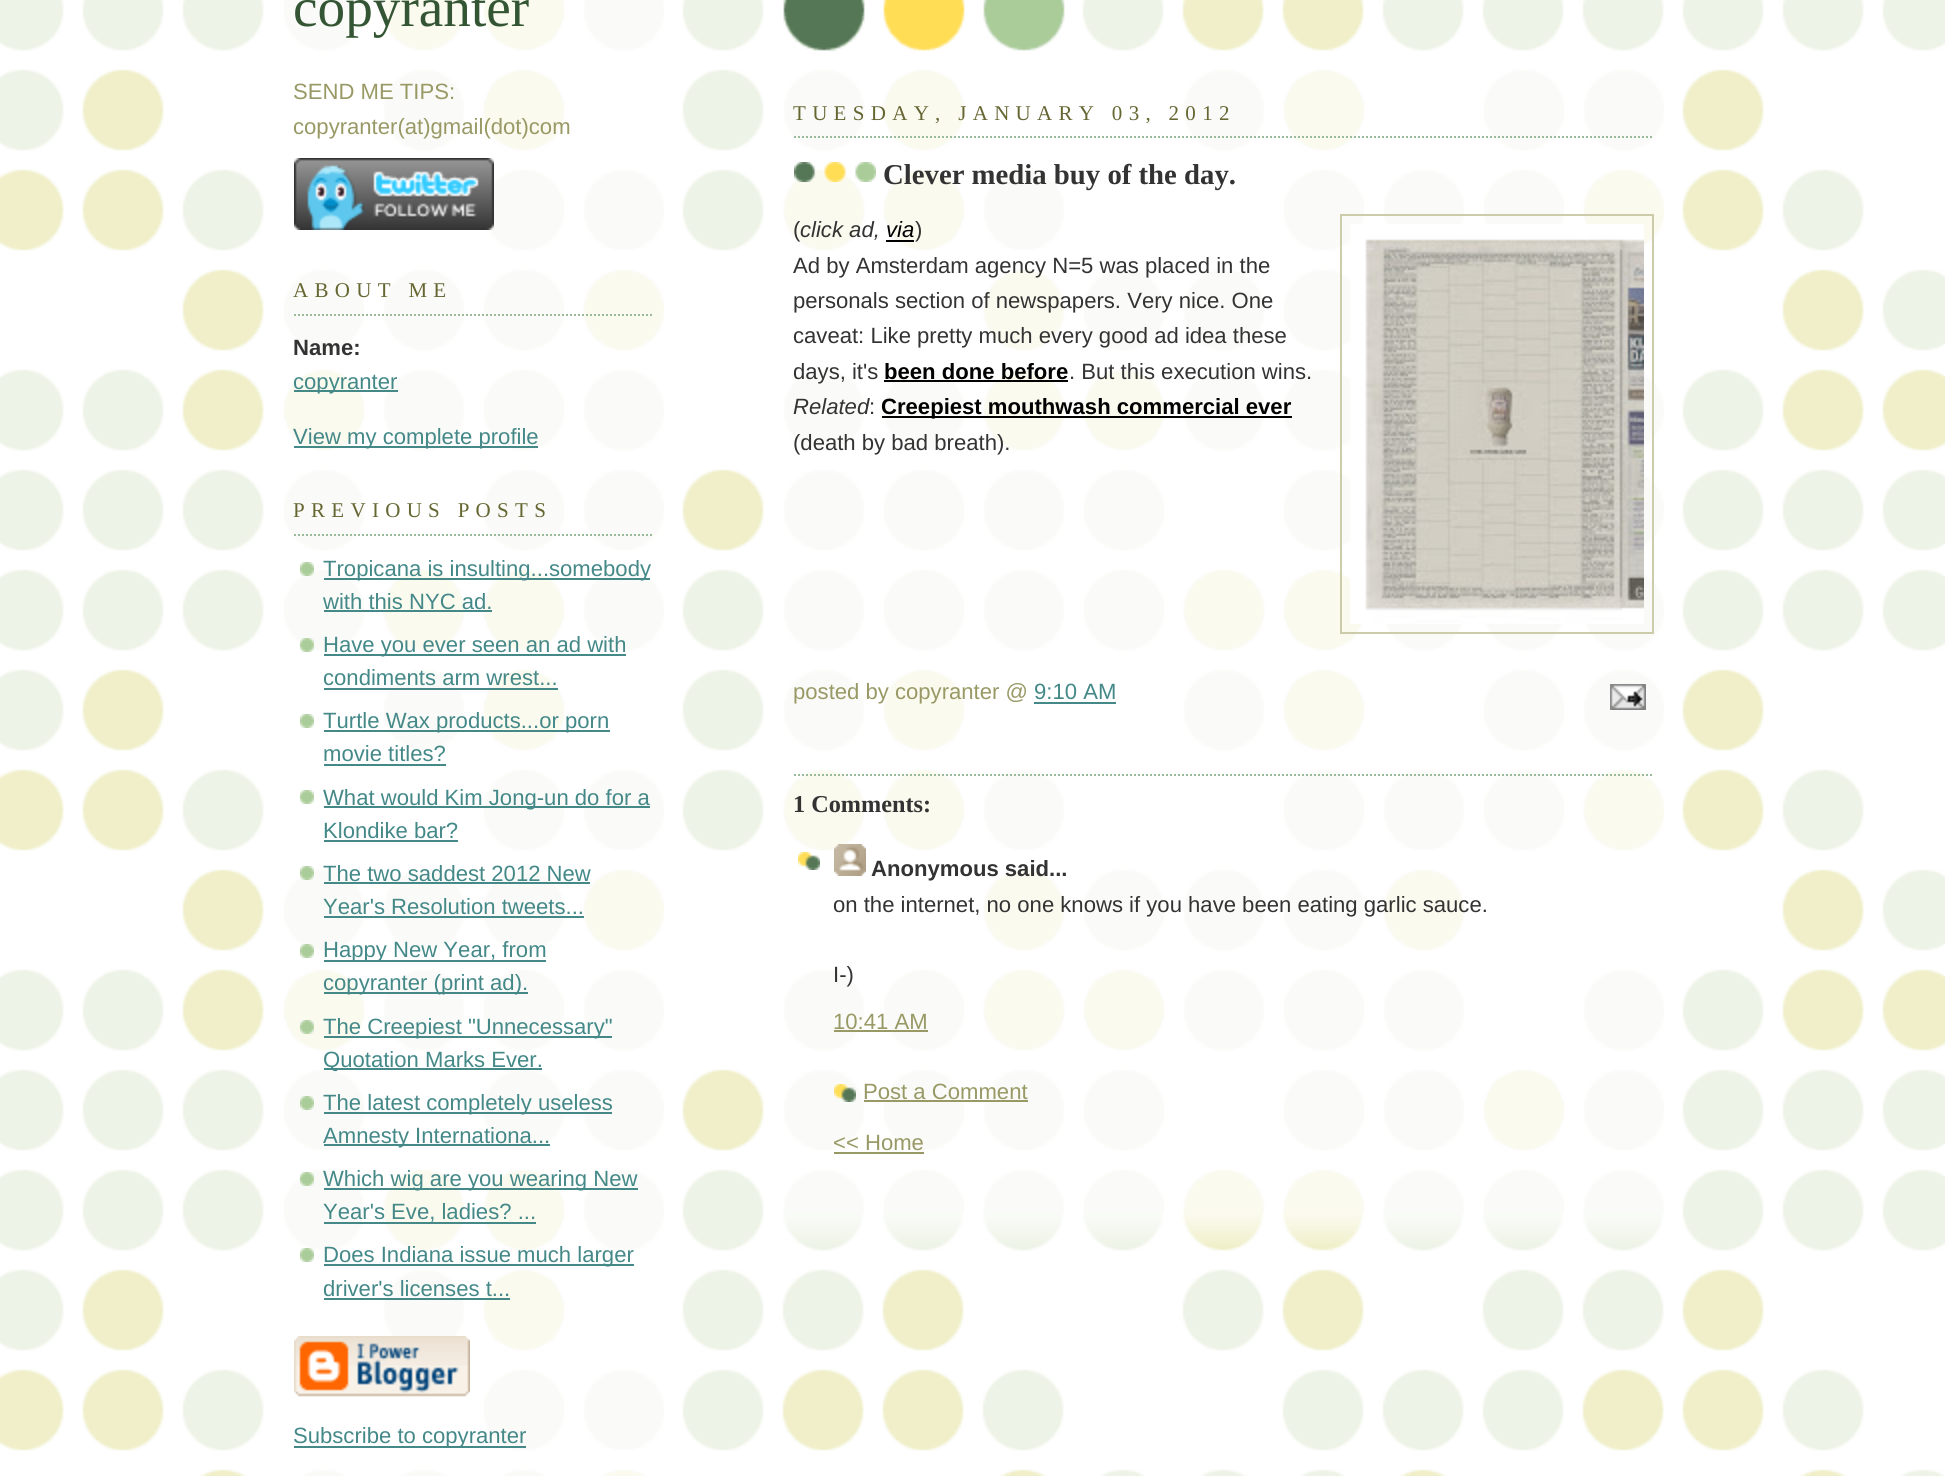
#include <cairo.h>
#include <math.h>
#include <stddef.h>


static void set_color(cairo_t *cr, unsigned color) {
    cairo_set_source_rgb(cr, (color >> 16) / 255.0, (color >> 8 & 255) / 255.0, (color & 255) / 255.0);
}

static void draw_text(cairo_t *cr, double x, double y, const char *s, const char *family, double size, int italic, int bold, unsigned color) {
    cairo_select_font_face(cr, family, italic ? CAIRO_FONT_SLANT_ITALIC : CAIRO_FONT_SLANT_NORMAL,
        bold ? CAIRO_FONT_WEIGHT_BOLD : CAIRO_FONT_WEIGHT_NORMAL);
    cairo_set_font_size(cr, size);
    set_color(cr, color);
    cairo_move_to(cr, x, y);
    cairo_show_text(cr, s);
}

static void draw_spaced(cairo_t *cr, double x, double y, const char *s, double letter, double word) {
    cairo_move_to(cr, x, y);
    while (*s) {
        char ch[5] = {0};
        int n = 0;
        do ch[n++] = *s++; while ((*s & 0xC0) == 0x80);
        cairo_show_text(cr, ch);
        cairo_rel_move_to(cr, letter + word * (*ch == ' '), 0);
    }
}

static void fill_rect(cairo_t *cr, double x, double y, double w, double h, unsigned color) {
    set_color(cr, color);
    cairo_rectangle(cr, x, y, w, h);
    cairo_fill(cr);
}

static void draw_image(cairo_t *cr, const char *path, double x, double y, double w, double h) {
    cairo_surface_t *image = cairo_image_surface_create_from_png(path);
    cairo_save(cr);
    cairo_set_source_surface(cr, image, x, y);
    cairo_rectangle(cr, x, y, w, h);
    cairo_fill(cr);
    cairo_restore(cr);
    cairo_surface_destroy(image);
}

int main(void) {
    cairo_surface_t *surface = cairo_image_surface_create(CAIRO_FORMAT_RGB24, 1945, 1476);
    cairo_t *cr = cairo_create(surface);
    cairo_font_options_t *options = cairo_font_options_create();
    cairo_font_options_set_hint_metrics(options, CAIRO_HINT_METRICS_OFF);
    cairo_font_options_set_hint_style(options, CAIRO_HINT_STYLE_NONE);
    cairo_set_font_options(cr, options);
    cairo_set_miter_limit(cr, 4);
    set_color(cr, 0xFFFFFF);
    cairo_paint(cr);
    draw_image(cr, "assets/img1.png", 0, 0, 1945, 1476);
    draw_image(cr, "assets/img2.png", 782, 0, 283, 52);
    draw_image(cr, "assets/img3.png", 282, 0, 381, 1476);
    draw_text(cr, 293, 26, "copyranter", "Liberation Serif", 55.25, 0, 0, 0x335533);
    draw_text(cr, 293, 99, "SEND ME TIPS:", "Liberation Sans", 22.1, 0, 0, 0x999966);
    draw_text(cr, 293, 134, "copyranter(at)gmail(dot)com", "Liberation Sans", 22.1, 0, 0, 0x999966);
    draw_image(cr, "assets/img4.png", 294, 158, 200, 72);
    cairo_new_path(cr);
    cairo_move_to(cr, 294, 315);
    cairo_line_to(cr, 654, 315);
    set_color(cr, 0x99BB99);
    cairo_set_dash(cr, (double[]){2, 2}, 2, 0);
    cairo_stroke(cr);
    cairo_select_font_face(cr, "Liberation Serif", CAIRO_FONT_SLANT_NORMAL, CAIRO_FONT_WEIGHT_NORMAL);
    cairo_set_font_size(cr, 21);
    set_color(cr, 0x666633);
    draw_spaced(cr, 293, 297, "ABOUT ME", 6.3, 0);
    draw_text(cr, 293, 355, "Name:", "Liberation Sans", 22.1, 0, 1, 0x333333);
    fill_rect(cr, 294, 390, 104, 2, 0x448888);
    draw_text(cr, 293, 389, "copyranter", "Liberation Sans", 22.1, 0, 0, 0x448888);
    fill_rect(cr, 294, 446, 244, 2, 0x448888);
    draw_text(cr, 293, 444, "View my complete profile", "Liberation Sans", 22.1, 0, 0, 0x448888);
    cairo_new_path(cr);
    cairo_move_to(cr, 294, 535);
    cairo_line_to(cr, 654, 535);
    set_color(cr, 0x99BB99);
    cairo_stroke(cr);
    cairo_select_font_face(cr, "Liberation Serif", CAIRO_FONT_SLANT_NORMAL, CAIRO_FONT_WEIGHT_NORMAL);
    cairo_set_font_size(cr, 21);
    set_color(cr, 0x666633);
    draw_spaced(cr, 293, 517, "PREVIOUS POSTS", 6.3, 0);
    draw_image(cr, "assets/img5.png", 300, 562, 14, 14);
    fill_rect(cr, 324, 578, 326, 2, 0x448888);
    draw_text(cr, 323, 576, "Tropicana is insulting...somebody", "Liberation Sans", 22.1, 0, 0, 0x448888);
    draw_text(cr, 323, 609, "with this NYC ad.", "Liberation Sans", 22.1, 0, 0, 0x448888);
    fill_rect(cr, 324, 610, 168, 2, 0x448888);
    draw_image(cr, "assets/img6.png", 300, 638, 14, 14);
    fill_rect(cr, 324, 654, 302, 2, 0x448888);
    draw_text(cr, 323, 652, "Have you ever seen an ad with", "Liberation Sans", 22.1, 0, 0, 0x448888);
    draw_text(cr, 323, 685, "condiments arm wrest...", "Liberation Sans", 22.1, 0, 0, 0x448888);
    fill_rect(cr, 324, 688, 234, 2, 0x448888);
    draw_image(cr, "assets/img7.png", 300, 714, 14, 14);
    fill_rect(cr, 324, 730, 286, 2, 0x448888);
    draw_text(cr, 323, 728, "Turtle Wax products...or porn", "Liberation Sans", 22.1, 0, 0, 0x448888);
    draw_text(cr, 323, 761, "movie titles?", "Liberation Sans", 22.1, 0, 0, 0x448888);
    fill_rect(cr, 324, 764, 122, 2, 0x448888);
    draw_image(cr, "assets/img7.png", 300, 790, 14, 14);
    fill_rect(cr, 324, 806, 326, 2, 0x448888);
    draw_text(cr, 323, 805, "What would Kim Jong-un do for a", "Liberation Sans", 22.1, 0, 0, 0x448888);
    draw_text(cr, 323, 838, "Klondike bar?", "Liberation Sans", 22.1, 0, 0, 0x448888);
    fill_rect(cr, 324, 840, 134, 2, 0x448888);
    draw_image(cr, "assets/img8.png", 300, 866, 14, 14);
    draw_text(cr, 323, 881, "The two saddest 2012 New", "Liberation Sans", 22.1, 0, 0, 0x448888);
    fill_rect(cr, 324, 882, 266, 2, 0x448888);
    draw_text(cr, 323, 914, "Year's Resolution tweets...", "Liberation Sans", 22.1, 0, 0, 0x448888);
    fill_rect(cr, 324, 916, 260, 2, 0x448888);
    draw_image(cr, "assets/img9.png", 300, 944, 14, 14);
    fill_rect(cr, 324, 960, 222, 2, 0x448888);
    draw_text(cr, 323, 957, "Happy New Year, from", "Liberation Sans", 22.1, 0, 0, 0x448888);
    fill_rect(cr, 324, 992, 204, 2, 0x448888);
    draw_text(cr, 323, 990, "copyranter (print ad).", "Liberation Sans", 22.1, 0, 0, 0x448888);
    draw_image(cr, "assets/img10.png", 300, 1020, 14, 14);
    fill_rect(cr, 324, 1036, 288, 2, 0x448888);
    draw_text(cr, 323, 1034, "The Creepiest \"Unnecessary\"", "Liberation Sans", 22.1, 0, 0, 0x448888);
    fill_rect(cr, 324, 1068, 218, 2, 0x448888);
    draw_text(cr, 323, 1067, "Quotation Marks Ever.", "Liberation Sans", 22.1, 0, 0, 0x448888);
    draw_image(cr, "assets/img11.png", 300, 1096, 14, 14);
    fill_rect(cr, 324, 1112, 288, 2, 0x448888);
    draw_text(cr, 323, 1110, "The latest completely useless", "Liberation Sans", 22.1, 0, 0, 0x448888);
    fill_rect(cr, 324, 1144, 226, 2, 0x448888);
    draw_text(cr, 323, 1143, "Amnesty Internationa...", "Liberation Sans", 22.1, 0, 0, 0x448888);
    draw_image(cr, "assets/img12.png", 300, 1172, 14, 14);
    fill_rect(cr, 324, 1188, 314, 2, 0x448888);
    draw_text(cr, 323, 1186, "Which wig are you wearing New", "Liberation Sans", 22.1, 0, 0, 0x448888);
    draw_text(cr, 323, 1219, "Year's Eve, ladies? ...", "Liberation Sans", 22.1, 0, 0, 0x448888);
    fill_rect(cr, 324, 1222, 212, 2, 0x448888);
    draw_image(cr, "assets/img13.png", 300, 1248, 14, 14);
    fill_rect(cr, 324, 1264, 310, 2, 0x448888);
    draw_text(cr, 323, 1262, "Does Indiana issue much larger", "Liberation Sans", 22.1, 0, 0, 0x448888);
    draw_text(cr, 323, 1296, "driver's licenses t...", "Liberation Sans", 22.1, 0, 0, 0x448888);
    fill_rect(cr, 324, 1298, 186, 2, 0x448888);
    draw_image(cr, "assets/img14.png", 294, 1336, 176, 61);
    fill_rect(cr, 294, 1446, 232, 2, 0x448888);
    draw_text(cr, 293, 1443, "Subscribe to copyranter", "Liberation Sans", 22.1, 0, 0, 0x448888);
    draw_image(cr, "assets/img15.png", 782, 1212, 882, 33);
    draw_image(cr, "assets/img16.png", 782, 69, 881, 1143);
    cairo_new_path(cr);
    cairo_move_to(cr, 794, 137);
    cairo_line_to(cr, 1654, 137);
    set_color(cr, 0x99BB99);
    cairo_stroke(cr);
    cairo_select_font_face(cr, "Liberation Serif", CAIRO_FONT_SLANT_NORMAL, CAIRO_FONT_WEIGHT_NORMAL);
    cairo_set_font_size(cr, 21);
    set_color(cr, 0x666633);
    draw_spaced(cr, 793, 120, "TUESDAY, JANUARY 03, 2012", 6.3, 0);
    draw_image(cr, "assets/img17.png", 794, 162, 82, 20);
    draw_text(cr, 883, 184, "Clever media buy of the day.", "Liberation Serif", 28.75, 0, 1, 0x333333);
    draw_text(cr, 793, 237, "(", "Liberation Sans", 22.1, 0, 0, 0x333333);
    draw_text(cr, 800, 237, "click ad,", "Liberation Sans", 22.1, 1, 0, 0x333333);
    draw_text(cr, 886, 237, "via", "Liberation Sans", 22.1, 1, 0, 0x000000);
    fill_rect(cr, 886, 240, 28, 2, 0x000000);
    draw_text(cr, 915, 237, ")", "Liberation Sans", 22.1, 0, 0, 0x333333);
    cairo_rectangle(cr, 1341, 215, 312, 418);
    set_color(cr, 0xCCCCAA);
    cairo_set_dash(cr, NULL, 0, 0);
    cairo_stroke(cr);
    draw_image(cr, "assets/img18.png", 1350, 224, 294, 400);
    draw_text(cr, 793, 273, "Ad by Amsterdam agency N=5 was placed in the", "Liberation Sans", 22.1, 0, 0, 0x333333);
    draw_text(cr, 793, 308, "personals section of newspapers. Very nice. One", "Liberation Sans", 22.1, 0, 0, 0x333333);
    draw_text(cr, 793, 343, "caveat: Like pretty much every good ad idea these", "Liberation Sans", 22.1, 0, 0, 0x333333);
    draw_text(cr, 793, 379, "days, it's", "Liberation Sans", 22.1, 0, 0, 0x333333);
    draw_text(cr, 884, 379, "been done before", "Liberation Sans", 22.1, 0, 1, 0x000000);
    fill_rect(cr, 884, 380, 184, 2, 0x000000);
    draw_text(cr, 1069, 379, ". But this execution wins.", "Liberation Sans", 22.1, 0, 0, 0x333333);
    draw_text(cr, 793, 414, "Related", "Liberation Sans", 22.1, 1, 0, 0x333333);
    draw_text(cr, 869, 414, ":", "Liberation Sans", 22.1, 0, 0, 0x333333);
    fill_rect(cr, 882, 416, 410, 2, 0x000000);
    draw_text(cr, 881, 414, "Creepiest mouthwash commercial ever", "Liberation Sans", 22.1, 0, 1, 0x000000);
    draw_text(cr, 793, 450, "(death by bad breath).", "Liberation Sans", 22.1, 0, 0, 0x333333);
    draw_text(cr, 793, 699, "posted by copyranter @", "Liberation Sans", 22.1, 0, 0, 0x999966);
    draw_text(cr, 1034, 699, "9:10 AM", "Liberation Sans", 22.1, 0, 0, 0x448888);
    fill_rect(cr, 1034, 702, 82, 2, 0x448888);
    draw_image(cr, "assets/img19.png", 1610, 684, 36, 26);
    cairo_new_path(cr);
    cairo_move_to(cr, 794, 775);
    cairo_line_to(cr, 1654, 775);
    set_color(cr, 0x99BB99);
    cairo_set_dash(cr, (double[]){2, 2}, 2, 0);
    cairo_stroke(cr);
    draw_text(cr, 793, 812, "1 Comments:", "Liberation Serif", 24.25, 0, 1, 0x333333);
    draw_image(cr, "assets/img20.png", 798, 852, 22, 18);
    draw_image(cr, "assets/img21.png", 834, 844, 32, 32);
    draw_text(cr, 871, 876, "Anonymous said...", "Liberation Sans", 22.1, 0, 1, 0x333333);
    draw_text(cr, 833, 912, "on the internet, no one knows if you have been eating garlic sauce.", "Liberation Sans", 22.1, 0, 0, 0x333333);
    draw_text(cr, 833, 982, "I-)", "Liberation Sans", 22.1, 0, 0, 0x333333);
    draw_text(cr, 833, 1029, "10:41 AM", "Liberation Sans", 22.1, 0, 0, 0x999966);
    fill_rect(cr, 834, 1030, 94, 2, 0x999966);
    draw_image(cr, "assets/img22.png", 834, 1084, 22, 18);
    draw_text(cr, 863, 1099, "Post a Comment", "Liberation Sans", 22.1, 0, 0, 0x999966);
    fill_rect(cr, 864, 1100, 164, 2, 0x999966);
    draw_text(cr, 833, 1150, "<< Home", "Liberation Sans", 22.1, 0, 0, 0x999966);
    fill_rect(cr, 834, 1152, 90, 2, 0x999966);
    cairo_surface_write_to_png(surface, "output.png");
    cairo_font_options_destroy(options);
    cairo_destroy(cr);
    cairo_surface_destroy(surface);
    return 0;
}
